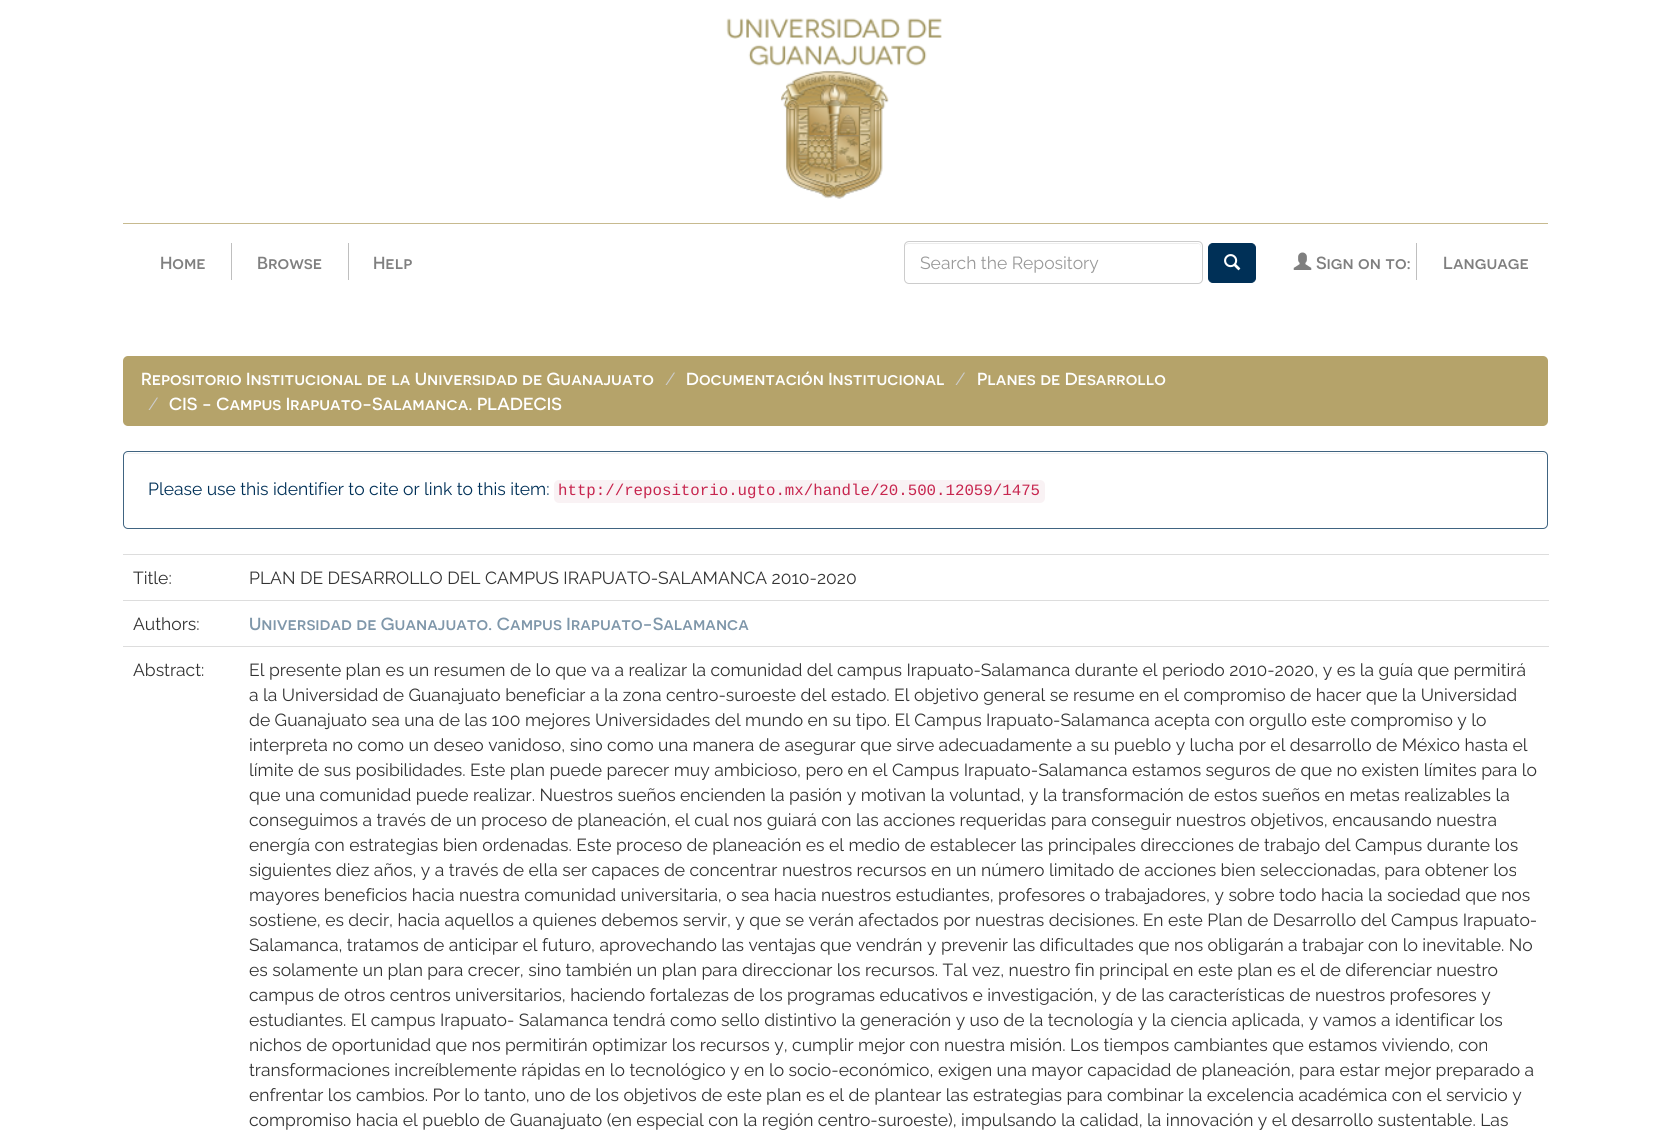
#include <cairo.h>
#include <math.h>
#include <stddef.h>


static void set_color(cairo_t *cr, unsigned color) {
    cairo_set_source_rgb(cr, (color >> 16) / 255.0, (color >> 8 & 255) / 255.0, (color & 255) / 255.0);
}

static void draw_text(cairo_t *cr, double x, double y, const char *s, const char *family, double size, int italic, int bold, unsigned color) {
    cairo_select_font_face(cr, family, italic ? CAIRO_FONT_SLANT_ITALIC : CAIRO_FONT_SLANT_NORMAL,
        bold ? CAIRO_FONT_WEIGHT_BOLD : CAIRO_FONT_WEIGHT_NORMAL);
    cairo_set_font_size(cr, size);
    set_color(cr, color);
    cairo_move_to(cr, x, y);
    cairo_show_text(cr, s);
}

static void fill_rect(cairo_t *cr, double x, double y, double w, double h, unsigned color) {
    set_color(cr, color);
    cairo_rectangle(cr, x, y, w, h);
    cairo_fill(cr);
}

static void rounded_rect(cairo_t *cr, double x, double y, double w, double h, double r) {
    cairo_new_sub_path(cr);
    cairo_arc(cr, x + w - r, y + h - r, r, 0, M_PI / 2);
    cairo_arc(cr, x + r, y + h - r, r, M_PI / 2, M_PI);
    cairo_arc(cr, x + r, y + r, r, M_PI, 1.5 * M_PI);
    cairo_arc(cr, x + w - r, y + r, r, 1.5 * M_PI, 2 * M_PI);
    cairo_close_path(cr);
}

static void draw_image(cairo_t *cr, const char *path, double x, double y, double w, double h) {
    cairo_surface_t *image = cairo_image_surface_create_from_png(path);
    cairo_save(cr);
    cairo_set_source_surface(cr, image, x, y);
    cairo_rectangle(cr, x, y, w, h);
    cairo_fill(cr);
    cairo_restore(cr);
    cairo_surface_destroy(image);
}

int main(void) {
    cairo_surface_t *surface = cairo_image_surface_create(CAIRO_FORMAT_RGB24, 1670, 1147);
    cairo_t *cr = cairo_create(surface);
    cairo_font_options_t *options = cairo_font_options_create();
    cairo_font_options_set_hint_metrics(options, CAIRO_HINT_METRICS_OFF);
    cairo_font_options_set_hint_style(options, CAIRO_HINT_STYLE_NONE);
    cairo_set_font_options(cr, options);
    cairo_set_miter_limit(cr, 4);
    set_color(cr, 0xFFFFFF);
    cairo_paint(cr);
    draw_image(cr, "assets/img1.png", 726, 18, 216, 181);
    fill_rect(cr, 123, 223, 1425, 1, 0xC7BA8F);
    draw_text(cr, 160, 269, "Home", "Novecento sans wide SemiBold", 17.5, 0, 0, 0x7F7F7F);
    fill_rect(cr, 231, 243, 1, 37, 0xBFBFBF);
    draw_text(cr, 257, 269, "Browse", "Novecento sans wide SemiBold", 17.5, 0, 0, 0x7F7F7F);
    fill_rect(cr, 348, 243, 1, 37, 0xBFBFBF);
    draw_text(cr, 373, 269, "Help", "Novecento sans wide SemiBold", 17.5, 0, 0, 0x7F7F7F);
    set_color(cr, 0xECECEC);
    cairo_new_path(cr);
    cairo_move_to(cr, 909, 244);
    cairo_line_to(cr, 1199, 244);
    cairo_line_to(cr, 1200, 245);
    cairo_line_to(cr, 1201, 248);
    cairo_curve_to(cr, 1201, 245, 1200, 243, 1197, 243);
    cairo_line_to(cr, 909, 243);
    cairo_curve_to(cr, 906, 243, 905, 245, 905, 248);
    cairo_curve_to(cr, 905, 245, 907, 244, 909, 244);
    cairo_close_path(cr);
    cairo_fill(cr);
    rounded_rect(cr, 904.5, 241.5, 298, 42, 4.5);
    set_color(cr, 0xCCCCCC);
    cairo_set_line_width(cr, 1);
    cairo_stroke(cr);
    draw_text(cr, 920, 269, "Search the Repository", "Raleway", 17.5, 0, 0, 0x999999);
    set_color(cr, 0x003057);
    rounded_rect(cr, 1208.5, 243.5, 47, 39, 4.5);
    cairo_fill_preserve(cr);
    cairo_stroke(cr);
    draw_image(cr, "assets/img2.png", 1224, 254, 17, 17);
    draw_image(cr, "assets/img3.png", 1293, 252, 19, 18);
    draw_text(cr, 1316, 269, "Sign on to:", "Novecento sans wide SemiBold", 17.5, 0, 0, 0x7F7F7F);
    fill_rect(cr, 1416, 243, 1, 37, 0xBFBFBF);
    draw_text(cr, 1443, 269, "Language", "Novecento sans wide SemiBold", 17.5, 0, 0, 0x7F7F7F);
    set_color(cr, 0xB5A36A);
    rounded_rect(cr, 123, 356, 1425, 70, 5);
    cairo_fill(cr);
    draw_text(cr, 141, 385, "Repositorio Institucional de la Universidad de Guanajuato", "Novecento sans wide SemiBold", 17.5, 0, 0, 0xFFFFFF);
    draw_text(cr, 665, 385, "/", "Raleway", 17.5, 0, 0, 0xCCCCCC);
    draw_text(cr, 686, 385, "Documentación Institucional", "Novecento sans wide SemiBold", 17.5, 0, 0, 0xFFFFFF);
    draw_text(cr, 955, 385, "/", "Raleway", 17.5, 0, 0, 0xCCCCCC);
    draw_text(cr, 977, 385, "Planes de Desarrollo", "Novecento sans wide SemiBold", 17.5, 0, 0, 0xFFFFFF);
    draw_text(cr, 148, 410, "/", "Raleway", 17.5, 0, 0, 0xCCCCCC);
    draw_text(cr, 169, 410, "CIS - Campus Irapuato-Salamanca. PLADECIS", "Novecento sans wide SemiBold", 17.5, 0, 0, 0xFFFFFF);
    set_color(cr, 0xF2F2F2);
    cairo_new_path(cr);
    cairo_move_to(cr, 128, 454);
    cairo_line_to(cr, 1542, 454);
    cairo_curve_to(cr, 1545, 454, 1546, 455, 1546, 458);
    cairo_line_to(cr, 1546, 457);
    cairo_curve_to(cr, 1546, 455, 1544, 453, 1542, 453);
    cairo_line_to(cr, 128, 453);
    cairo_curve_to(cr, 126, 453, 124, 455, 124, 457);
    cairo_line_to(cr, 124, 458);
    cairo_curve_to(cr, 124, 455, 125, 454, 128, 454);
    cairo_close_path(cr);
    cairo_fill(cr);
    rounded_rect(cr, 123.5, 451.5, 1424, 77, 4.5);
    set_color(cr, 0x406481);
    cairo_stroke(cr);
    draw_text(cr, 148, 495, "Please use this identifier to cite or link to this item:", "Raleway", 17.5, 0, 0, 0x003057);
    set_color(cr, 0xF9F2F4);
    rounded_rect(cr, 554, 480, 491, 23, 5);
    cairo_fill(cr);
    draw_text(cr, 558, 495, "http://repositorio.ugto.mx/handle/20.500.12059/1475", "Liberation Mono", 15.75, 0, 0, 0xC7254E);
    draw_text(cr, 133, 584, "Title:", "Raleway", 17.5, 0, 0, 0x333333);
    fill_rect(cr, 123, 554, 1426, 1, 0xDDDDDD);
    draw_text(cr, 249, 584, "PLAN DE DESARROLLO DEL CAMPUS IRAPUATO-SALAMANCA 2010-2020", "Raleway", 17.5, 0, 0, 0x333333);
    draw_text(cr, 133, 630, "Authors:", "Raleway", 17.5, 0, 0, 0x333333);
    fill_rect(cr, 123, 600, 1426, 1, 0xDDDDDD);
    draw_text(cr, 249, 630, "Universidad de Guanajuato. Campus Irapuato-Salamanca", "Novecento sans wide SemiBold", 17.5, 0, 0, 0x7F97AA);
    draw_text(cr, 133, 676, "Abstract:", "Raleway", 17.5, 0, 0, 0x333333);
    fill_rect(cr, 123, 646, 1426, 1, 0xDDDDDD);
    draw_text(cr, 249, 676, "El presente plan es un resumen de lo que va a realizar la comunidad del campus Irapuato-Salamanca durante el periodo 2010-2020, y es la guía que permitirá", "Raleway", 17.5, 0, 0, 0x333333);
    draw_text(cr, 249, 701, "a la Universidad de Guanajuato beneficiar a la zona centro-suroeste del estado. El objetivo general se resume en el compromiso de hacer que la Universidad", "Raleway", 17.5, 0, 0, 0x333333);
    draw_text(cr, 249, 726, "de Guanajuato sea una de las 100 mejores Universidades del mundo en su tipo. El Campus Irapuato-Salamanca acepta con orgullo este compromiso y lo", "Raleway", 17.5, 0, 0, 0x333333);
    draw_text(cr, 249, 751, "interpreta no como un deseo vanidoso, sino como una manera de asegurar que sirve adecuadamente a su pueblo y lucha por el desarrollo de México hasta el", "Raleway", 17.5, 0, 0, 0x333333);
    draw_text(cr, 249, 776, "límite de sus posibilidades. Este plan puede parecer muy ambicioso, pero en el Campus Irapuato-Salamanca estamos seguros de que no existen límites para lo", "Raleway", 17.5, 0, 0, 0x333333);
    draw_text(cr, 249, 801, "que una comunidad puede realizar. Nuestros sueños encienden la pasión y motivan la voluntad, y la transformación de estos sueños en metas realizables la", "Raleway", 17.5, 0, 0, 0x333333);
    draw_text(cr, 249, 826, "conseguimos a través de un proceso de planeación, el cual nos guiará con las acciones requeridas para conseguir nuestros objetivos, encausando nuestra", "Raleway", 17.5, 0, 0, 0x333333);
    draw_text(cr, 249, 851, "energía con estrategias bien ordenadas. Este proceso de planeación es el medio de establecer las principales direcciones de trabajo del Campus durante los", "Raleway", 17.5, 0, 0, 0x333333);
    draw_text(cr, 249, 876, "siguientes diez años, y a través de ella ser capaces de concentrar nuestros recursos en un número limitado de acciones bien seleccionadas, para obtener los", "Raleway", 17.5, 0, 0, 0x333333);
    draw_text(cr, 249, 901, "mayores beneficios hacia nuestra comunidad universitaria, o sea hacia nuestros estudiantes, profesores o trabajadores, y sobre todo hacia la sociedad que nos", "Raleway", 17.5, 0, 0, 0x333333);
    draw_text(cr, 249, 926, "sostiene, es decir, hacia aquellos a quienes debemos servir, y que se verán afectados por nuestras decisiones. En este Plan de Desarrollo del Campus Irapuato-", "Raleway", 17.5, 0, 0, 0x333333);
    draw_text(cr, 249, 951, "Salamanca, tratamos de anticipar el futuro, aprovechando las ventajas que vendrán y prevenir las dificultades que nos obligarán a trabajar con lo inevitable. No", "Raleway", 17.5, 0, 0, 0x333333);
    draw_text(cr, 249, 976, "es solamente un plan para crecer, sino también un plan para direccionar los recursos. Tal vez, nuestro fin principal en este plan es el de diferenciar nuestro", "Raleway", 17.5, 0, 0, 0x333333);
    draw_text(cr, 249, 1001, "campus de otros centros universitarios, haciendo fortalezas de los programas educativos e investigación, y de las características de nuestros profesores y", "Raleway", 17.5, 0, 0, 0x333333);
    draw_text(cr, 249, 1026, "estudiantes. El campus Irapuato- Salamanca tendrá como sello distintivo la generación y uso de la tecnología y la ciencia aplicada, y vamos a identificar los", "Raleway", 17.5, 0, 0, 0x333333);
    draw_text(cr, 249, 1051, "nichos de oportunidad que nos permitirán optimizar los recursos y, cumplir mejor con nuestra misión. Los tiempos cambiantes que estamos viviendo, con", "Raleway", 17.5, 0, 0, 0x333333);
    draw_text(cr, 249, 1076, "transformaciones increíblemente rápidas en lo tecnológico y en lo socio-económico, exigen una mayor capacidad de planeación, para estar mejor preparado a", "Raleway", 17.5, 0, 0, 0x333333);
    draw_text(cr, 249, 1101, "enfrentar los cambios. Por lo tanto, uno de los objetivos de este plan es el de plantear las estrategias para combinar la excelencia académica con el servicio y", "Raleway", 17.5, 0, 0, 0x333333);
    draw_text(cr, 249, 1126, "compromiso hacia el pueblo de Guanajuato (en especial con la región centro-suroeste), impulsando la calidad, la innovación y el desarrollo sustentable. Las", "Raleway", 17.5, 0, 0, 0x333333);
    cairo_surface_write_to_png(surface, "output.png");
    cairo_font_options_destroy(options);
    cairo_destroy(cr);
    cairo_surface_destroy(surface);
    return 0;
}
